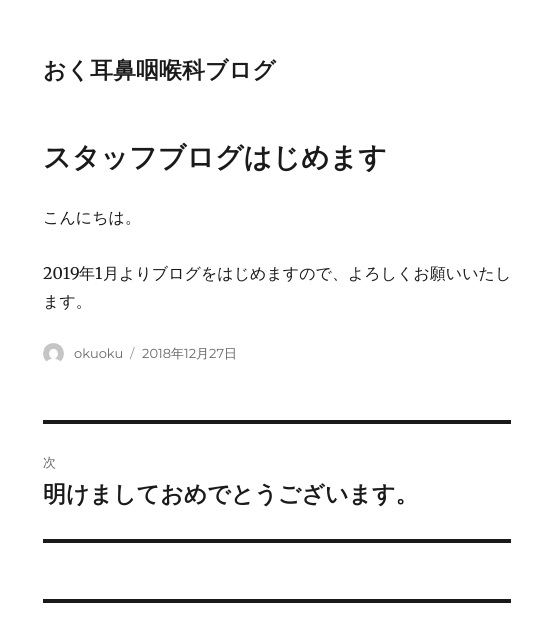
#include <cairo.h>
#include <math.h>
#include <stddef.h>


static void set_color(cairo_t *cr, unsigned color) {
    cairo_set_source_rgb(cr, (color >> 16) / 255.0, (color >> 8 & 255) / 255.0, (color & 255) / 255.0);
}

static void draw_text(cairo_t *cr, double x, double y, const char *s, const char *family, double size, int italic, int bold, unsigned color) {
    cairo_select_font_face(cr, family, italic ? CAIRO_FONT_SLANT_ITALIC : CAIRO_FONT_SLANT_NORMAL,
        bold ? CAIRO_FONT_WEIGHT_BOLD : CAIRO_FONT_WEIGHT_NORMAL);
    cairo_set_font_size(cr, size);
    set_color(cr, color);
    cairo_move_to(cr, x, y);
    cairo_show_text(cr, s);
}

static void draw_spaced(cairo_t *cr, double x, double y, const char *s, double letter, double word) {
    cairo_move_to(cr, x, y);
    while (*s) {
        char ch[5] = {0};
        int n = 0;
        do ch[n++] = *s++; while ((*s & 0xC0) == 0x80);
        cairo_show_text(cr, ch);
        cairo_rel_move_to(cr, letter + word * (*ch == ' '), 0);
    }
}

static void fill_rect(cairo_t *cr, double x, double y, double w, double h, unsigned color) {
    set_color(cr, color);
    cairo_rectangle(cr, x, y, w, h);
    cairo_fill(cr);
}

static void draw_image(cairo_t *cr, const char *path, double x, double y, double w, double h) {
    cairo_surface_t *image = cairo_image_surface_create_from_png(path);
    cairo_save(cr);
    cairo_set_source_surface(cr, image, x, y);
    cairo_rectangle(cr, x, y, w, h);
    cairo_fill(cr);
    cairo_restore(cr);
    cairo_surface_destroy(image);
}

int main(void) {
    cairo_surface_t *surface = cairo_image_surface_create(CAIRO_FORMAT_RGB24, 554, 631);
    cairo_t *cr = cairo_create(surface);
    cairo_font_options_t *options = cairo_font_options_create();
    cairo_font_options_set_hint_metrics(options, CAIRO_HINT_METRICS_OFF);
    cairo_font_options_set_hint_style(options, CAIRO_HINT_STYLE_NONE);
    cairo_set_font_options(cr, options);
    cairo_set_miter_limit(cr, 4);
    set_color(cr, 0xFFFFFF);
    cairo_paint(cr);
    draw_text(cr, 43, 78, "おく耳鼻咽喉科ブログ", "WenQuanYi Zen Hei", 23, 0, 1, 0x1A1A1A);
    draw_text(cr, 43, 167, "スタッフブログはじめます", "WenQuanYi Zen Hei", 28, 0, 1, 0x1A1A1A);
    draw_text(cr, 43, 223, "こんにちは。", "WenQuanYi Zen Hei Medium", 16, 0, 0, 0x1A1A1A);
    draw_text(cr, 43, 279, "2019", "Merriweather", 16, 0, 0, 0x1A1A1A);
    draw_text(cr, 79, 279, "年", "WenQuanYi Zen Hei Medium", 16, 0, 0, 0x1A1A1A);
    draw_text(cr, 95, 279, "1", "Merriweather", 16, 0, 0, 0x1A1A1A);
    draw_text(cr, 103, 279, "月よりブログをはじめますので、よろしくお願いいたし", "WenQuanYi Zen Hei Medium", 16, 0, 0, 0x1A1A1A);
    draw_text(cr, 43, 307, "ます。", "WenQuanYi Zen Hei Medium", 16, 0, 0, 0x1A1A1A);
    draw_image(cr, "assets/img1.png", 43, 343, 21, 19);
    draw_text(cr, 74, 358, "okuoku", "Montserrat", 13, 0, 0, 0x686868);
    draw_text(cr, 130, 358, "/", "Montserrat", 13, 0, 0, 0x959595);
    draw_text(cr, 142, 358, "2018", "Montserrat", 13, 0, 0, 0x686868);
    draw_text(cr, 171, 358, "年", "WenQuanYi Zen Hei Medium", 13, 0, 0, 0x686868);
    draw_text(cr, 184, 358, "12", "Montserrat", 13, 0, 0, 0x686868);
    draw_text(cr, 196, 358, "月", "WenQuanYi Zen Hei Medium", 13, 0, 0, 0x686868);
    draw_text(cr, 209, 358, "27", "Montserrat", 13, 0, 0, 0x686868);
    draw_text(cr, 224, 358, "日", "WenQuanYi Zen Hei Medium", 13, 0, 0, 0x686868);
    fill_rect(cr, 43, 420, 468, 4, 0x1A1A1A);
    fill_rect(cr, 43, 539, 468, 4, 0x1A1A1A);
    set_color(cr, 0x686868);
    draw_spaced(cr, 43, 467, "次", 1, 0);
    draw_text(cr, 43, 502, "明けましておめでとうございます。", "WenQuanYi Zen Hei", 23, 0, 1, 0x1A1A1A);
    fill_rect(cr, 43, 599, 468, 4, 0x1A1A1A);
    cairo_surface_write_to_png(surface, "output.png");
    cairo_font_options_destroy(options);
    cairo_destroy(cr);
    cairo_surface_destroy(surface);
    return 0;
}
